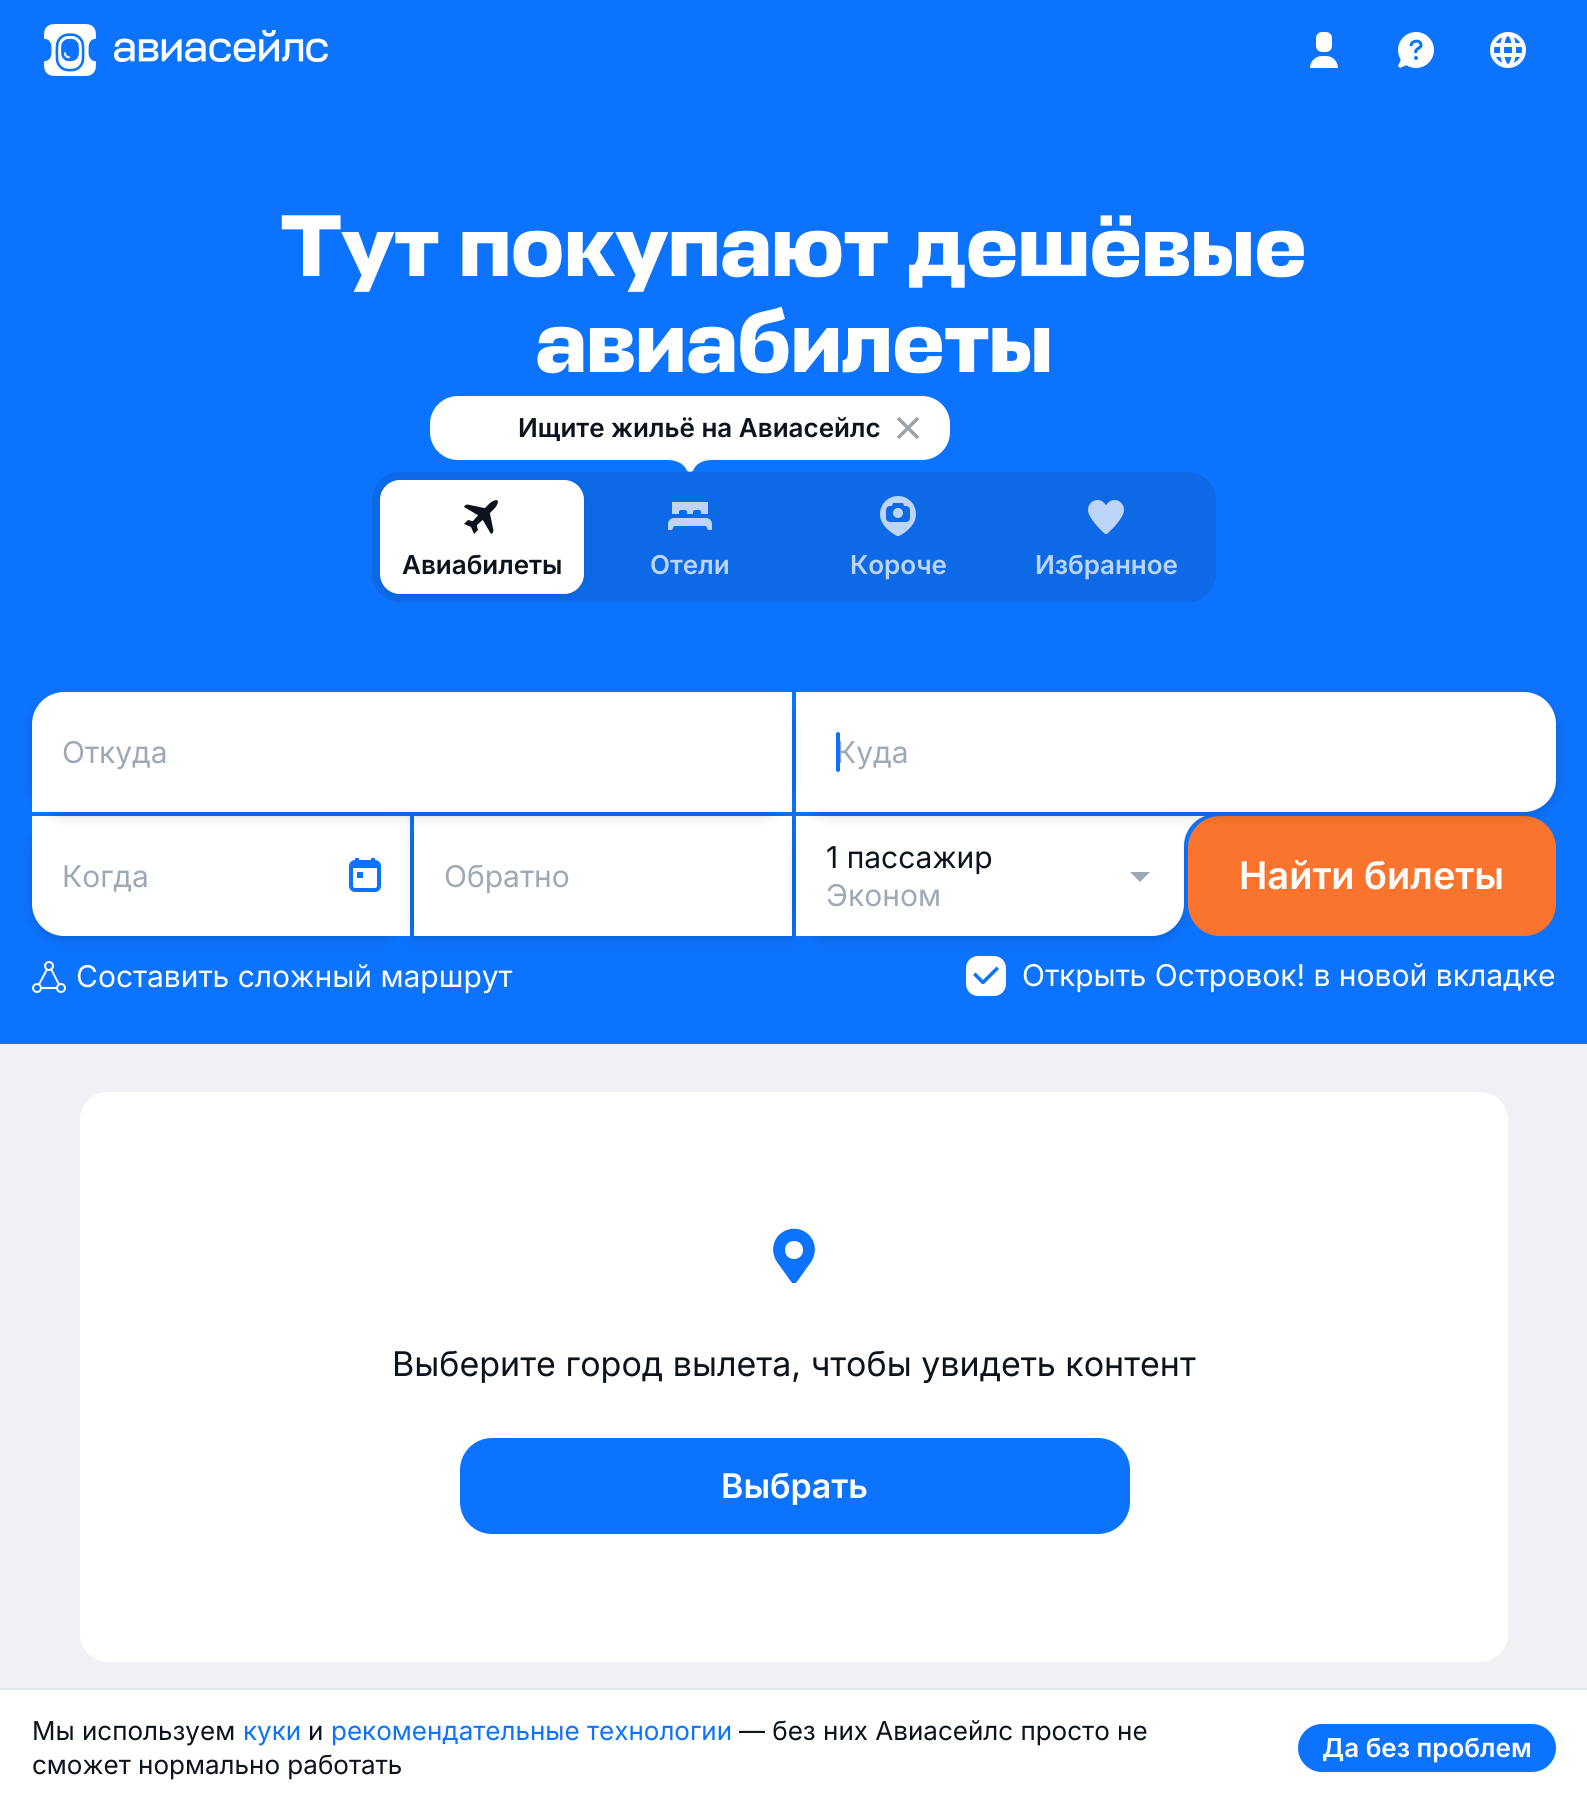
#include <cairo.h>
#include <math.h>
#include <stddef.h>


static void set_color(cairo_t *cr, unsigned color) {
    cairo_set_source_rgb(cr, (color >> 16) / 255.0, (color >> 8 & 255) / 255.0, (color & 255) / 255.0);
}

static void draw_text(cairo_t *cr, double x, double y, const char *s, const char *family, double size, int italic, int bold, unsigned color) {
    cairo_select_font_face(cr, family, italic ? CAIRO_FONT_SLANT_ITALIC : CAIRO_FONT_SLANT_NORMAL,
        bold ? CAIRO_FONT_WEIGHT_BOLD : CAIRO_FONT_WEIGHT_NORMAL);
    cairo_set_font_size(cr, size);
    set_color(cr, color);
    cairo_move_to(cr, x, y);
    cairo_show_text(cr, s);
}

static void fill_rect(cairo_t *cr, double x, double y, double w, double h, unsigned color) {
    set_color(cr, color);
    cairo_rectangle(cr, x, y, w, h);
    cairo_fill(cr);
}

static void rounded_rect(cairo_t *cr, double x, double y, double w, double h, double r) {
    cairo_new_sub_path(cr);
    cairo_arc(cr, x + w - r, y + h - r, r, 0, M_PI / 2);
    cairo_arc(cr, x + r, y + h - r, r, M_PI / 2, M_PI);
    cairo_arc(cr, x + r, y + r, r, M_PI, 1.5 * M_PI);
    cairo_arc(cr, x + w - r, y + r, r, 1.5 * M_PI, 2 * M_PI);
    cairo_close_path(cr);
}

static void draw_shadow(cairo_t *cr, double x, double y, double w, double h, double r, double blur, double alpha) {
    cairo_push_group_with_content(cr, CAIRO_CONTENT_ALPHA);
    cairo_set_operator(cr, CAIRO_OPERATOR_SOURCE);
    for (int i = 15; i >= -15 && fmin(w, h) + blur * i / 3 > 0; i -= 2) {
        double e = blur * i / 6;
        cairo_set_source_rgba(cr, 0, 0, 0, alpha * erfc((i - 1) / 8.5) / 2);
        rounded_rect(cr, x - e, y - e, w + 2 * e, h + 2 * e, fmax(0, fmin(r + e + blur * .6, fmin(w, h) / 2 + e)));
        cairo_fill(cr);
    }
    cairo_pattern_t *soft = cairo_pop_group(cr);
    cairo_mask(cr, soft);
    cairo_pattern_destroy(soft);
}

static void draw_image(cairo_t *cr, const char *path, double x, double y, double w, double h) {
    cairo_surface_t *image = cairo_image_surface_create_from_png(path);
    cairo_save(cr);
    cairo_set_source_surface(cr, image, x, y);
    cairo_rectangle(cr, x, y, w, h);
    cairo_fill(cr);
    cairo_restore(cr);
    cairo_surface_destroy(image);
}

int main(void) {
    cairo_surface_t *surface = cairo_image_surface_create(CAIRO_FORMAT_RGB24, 1587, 1806);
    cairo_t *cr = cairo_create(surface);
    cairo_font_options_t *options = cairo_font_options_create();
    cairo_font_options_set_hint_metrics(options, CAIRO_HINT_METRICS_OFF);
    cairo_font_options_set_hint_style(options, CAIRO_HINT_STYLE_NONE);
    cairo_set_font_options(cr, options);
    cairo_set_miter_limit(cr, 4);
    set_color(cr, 0xEFF1F4);
    cairo_paint(cr);
    fill_rect(cr, 0, 0, 1587, 1044, 0x0C73FE);
    draw_image(cr, "assets/img1.png", 44, 24, 52, 52);
    draw_image(cr, "assets/img2.png", 114, 30, 214, 32);
    draw_image(cr, "assets/img3.png", 1310, 32, 28, 36);
    draw_image(cr, "assets/img4.png", 1398, 32, 36, 36);
    draw_image(cr, "assets/img5.png", 1490, 32, 36, 36);
    draw_text(cr, 281, 276, "Тут покупают дешёвые", "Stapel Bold", 88, 0, 1, 0xFFFFFF);
    draw_text(cr, 535, 372, "авиабилеты", "Stapel Bold", 88, 0, 1, 0xFFFFFF);
    set_color(cr, 0x0D69E6);
    rounded_rect(cr, 372, 472, 844, 130, 28);
    cairo_fill(cr);
    set_color(cr, 0x000000);
    draw_shadow(cr, 380, 482, 204, 114, 20, 4, 0.06);
    set_color(cr, 0xFFFFFF);
    rounded_rect(cr, 380, 480, 204, 114, 20);
    cairo_fill(cr);
    draw_image(cr, "assets/img6.png", 464, 500, 34, 34);
    draw_text(cr, 402, 574, "Авиабилеты", "Inter SemiBold", 26, 0, 0, 0x0C131D);
    set_color(cr, 0xFFFFFF);
    rounded_rect(cr, 430, 396, 520, 64, 28);
    cairo_fill(cr);
    draw_text(cr, 518, 437, "Ищите жильё на Авиасейлс", "Inter SemiBold", 26, 0, 0, 0x0C131D);
    draw_image(cr, "assets/img7.png", 896, 416, 24, 24);
    set_color(cr, 0xFFFFFF);
    cairo_new_path(cr);
    cairo_move_to(cr, 668, 460);
    cairo_line_to(cr, 712, 460);
    cairo_curve_to(cr, 701, 460, 695, 465, 693, 471);
    cairo_curve_to(cr, 690, 472, 690, 472, 687, 471);
    cairo_curve_to(cr, 685, 465, 678, 460, 668, 460);
    cairo_fill(cr);
    draw_image(cr, "assets/img8.png", 668, 502, 44, 28);
    draw_text(cr, 650, 574, "Отели", "Inter SemiBold", 26, 0, 0, 0xBBD5F8);
    draw_image(cr, "assets/img9.png", 880, 496, 36, 40);
    draw_text(cr, 850, 574, "Короче", "Inter SemiBold", 26, 0, 0, 0xBBD5F8);
    draw_image(cr, "assets/img10.png", 1088, 500, 36, 34);
    draw_text(cr, 1035, 574, "Избранное", "Inter SemiBold", 26, 0, 0, 0xBBD5F8);
    set_color(cr, 0x000000);
    draw_shadow(cr, 32, 820, 378, 120, 32, 6, 0.15);
    set_color(cr, 0xFFFFFF);
    cairo_new_path(cr);
    cairo_move_to(cr, 32, 816);
    cairo_line_to(cr, 410, 816);
    cairo_line_to(cr, 410, 936);
    cairo_line_to(cr, 64, 936);
    cairo_curve_to(cr, 46.5, 936, 32, 921.5, 32, 904);
    cairo_close_path(cr);
    cairo_fill(cr);
    set_color(cr, 0x000000);
    draw_shadow(cr, 414, 820, 378, 120, 0, 6, 0.15);
    fill_rect(cr, 414, 816, 378, 120, 0xFFFFFF);
    set_color(cr, 0x000000);
    draw_shadow(cr, 796, 820, 388, 120, 32, 6, 0.15);
    set_color(cr, 0xFFFFFF);
    cairo_new_path(cr);
    cairo_move_to(cr, 796, 692);
    cairo_line_to(cr, 1524, 692);
    cairo_curve_to(cr, 1541.5, 692, 1556, 706.5, 1556, 724);
    cairo_line_to(cr, 1556, 780);
    cairo_curve_to(cr, 1556, 797.5, 1541.5, 812, 1524, 812);
    cairo_line_to(cr, 796, 812);
    cairo_close_path(cr);
    cairo_fill(cr);
    cairo_set_fill_rule(cr, CAIRO_FILL_RULE_EVEN_ODD);
    cairo_new_path(cr);
    cairo_move_to(cr, 1205, 816);
    cairo_curve_to(cr, 1192.5, 820.5, 1184, 832.5, 1184, 846);
    cairo_line_to(cr, 1184, 816);
    cairo_close_path(cr);
    cairo_fill(cr);
    cairo_new_path(cr);
    cairo_move_to(cr, 796, 816);
    cairo_line_to(cr, 1184, 816);
    cairo_line_to(cr, 1184, 904);
    cairo_curve_to(cr, 1184, 921.5, 1169.5, 936, 1152, 936);
    cairo_line_to(cr, 796, 936);
    cairo_close_path(cr);
    cairo_fill(cr);
    set_color(cr, 0xFA742D);
    rounded_rect(cr, 1188, 816, 368, 120, 32);
    cairo_fill(cr);
    cairo_save(cr);
    cairo_new_path(cr);
    cairo_move_to(cr, 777, 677);
    cairo_line_to(cr, 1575, 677);
    cairo_line_to(cr, 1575, 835);
    cairo_line_to(cr, 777, 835);
    cairo_close_path(cr);
    cairo_move_to(cr, 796, 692);
    cairo_line_to(cr, 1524, 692);
    cairo_curve_to(cr, 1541.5, 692, 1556, 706.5, 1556, 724);
    cairo_line_to(cr, 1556, 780);
    cairo_curve_to(cr, 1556, 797.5, 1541.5, 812, 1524, 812);
    cairo_line_to(cr, 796, 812);
    cairo_close_path(cr);
    cairo_clip(cr);
    set_color(cr, 0x000000);
    draw_shadow(cr, 796, 696, 760, 120, 32, 6, 0.15);
    cairo_restore(cr);
    set_color(cr, 0xFFFFFF);
    cairo_new_path(cr);
    cairo_move_to(cr, 64, 692);
    cairo_line_to(cr, 792, 692);
    cairo_line_to(cr, 792, 812);
    cairo_line_to(cr, 32, 812);
    cairo_line_to(cr, 32, 724);
    cairo_curve_to(cr, 32, 706.5, 46.5, 692, 64, 692);
    cairo_close_path(cr);
    cairo_fill(cr);
    cairo_save(cr);
    cairo_new_path(cr);
    cairo_move_to(cr, 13, 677);
    cairo_line_to(cr, 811, 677);
    cairo_line_to(cr, 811, 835);
    cairo_line_to(cr, 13, 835);
    cairo_close_path(cr);
    cairo_move_to(cr, 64, 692);
    cairo_line_to(cr, 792, 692);
    cairo_line_to(cr, 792, 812);
    cairo_line_to(cr, 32, 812);
    cairo_line_to(cr, 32, 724);
    cairo_curve_to(cr, 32, 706.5, 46.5, 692, 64, 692);
    cairo_close_path(cr);
    cairo_clip(cr);
    set_color(cr, 0x000000);
    draw_shadow(cr, 32, 696, 760, 120, 32, 6, 0.15);
    cairo_restore(cr);
    draw_text(cr, 62, 763, "Откуда", "Inter", 30, 0, 0, 0x9EA9B7);
    draw_text(cr, 836, 763, "Куда", "Inter", 30, 0, 0, 0x9EA9B7);
    set_color(cr, 0x0C73FE);
    rounded_rect(cr, 836, 732, 4, 40, 2);
    cairo_fill(cr);
    draw_text(cr, 62, 887, "Когда", "Inter", 30, 0, 0, 0x9EA9B7);
    draw_image(cr, "assets/img11.png", 349, 858, 32, 34);
    draw_text(cr, 444, 887, "Обратно", "Inter", 30, 0, 0, 0x9EA9B7);
    draw_text(cr, 826, 868, "1 пассажир", "Inter", 30, 0, 0, 0x0C131D);
    set_color(cr, 0x9EA9B7);
    cairo_set_fill_rule(cr, CAIRO_FILL_RULE_WINDING);
    cairo_new_path(cr);
    cairo_move_to(cr, 1130, 872);
    cairo_line_to(cr, 1150, 872);
    cairo_line_to(cr, 1140, 882);
    cairo_close_path(cr);
    cairo_fill(cr);
    draw_text(cr, 826, 906, "Эконом", "Inter", 30, 0, 0, 0x9EA9B7);
    draw_text(cr, 1239, 889, "Найти билеты", "Inter SemiBold", 38, 0, 0, 0xFFFFFF);
    draw_image(cr, "assets/img12.png", 32, 961, 34, 32);
    draw_text(cr, 76, 987, "Составить сложный маршрут", "Inter", 30, 0, 0, 0xFFFFFF);
    rounded_rect(cr, 967, 957, 38, 38, 11);
    cairo_fill_preserve(cr);
    cairo_stroke(cr);
    set_color(cr, 0x0C73FE);
    cairo_new_path(cr);
    cairo_move_to(cr, 984, 984);
    cairo_line_to(cr, 982, 984);
    cairo_line_to(cr, 973, 975);
    cairo_line_to(cr, 975.5, 972.5);
    cairo_line_to(cr, 983, 980);
    cairo_line_to(cr, 996.5, 966.5);
    cairo_line_to(cr, 999, 969);
    cairo_close_path(cr);
    cairo_fill(cr);
    draw_text(cr, 1022, 986, "Открыть Островок! в новой вкладке", "Inter", 30, 0, 0, 0xFFFFFF);
    rounded_rect(cr, 80, 1092, 1428, 570, 28);
    cairo_fill(cr);
    set_color(cr, 0x0C73FE);
    cairo_set_fill_rule(cr, CAIRO_FILL_RULE_EVEN_ODD);
    cairo_new_path(cr);
    cairo_move_to(cr, 811, 1262);
    cairo_line_to(cr, 796, 1283);
    cairo_line_to(cr, 792, 1283);
    cairo_line_to(cr, 777, 1262);
    cairo_curve_to(cr, 771, 1253, 772, 1241, 780, 1234);
    cairo_curve_to(cr, 788, 1227, 800, 1227, 808, 1234);
    cairo_curve_to(cr, 816, 1241, 817, 1253, 811, 1262);
    cairo_close_path(cr);
    cairo_move_to(cr, 794, 1259);
    cairo_curve_to(cr, 806, 1259, 806, 1241, 794, 1241);
    cairo_curve_to(cr, 782, 1241, 782, 1259, 794, 1259);
    cairo_fill(cr);
    draw_text(cr, 392, 1376, "Выберите город вылета, чтобы увидеть контент", "Inter", 34, 0, 0, 0x0C131D);
    set_color(cr, 0x0C73FE);
    rounded_rect(cr, 460, 1438, 670, 96, 32);
    cairo_fill(cr);
    draw_text(cr, 721, 1498, "Выбрать", "Inter SemiBold", 34, 0, 0, 0xFFFFFF);
    fill_rect(cr, 0, 1690, 1587, 116, 0xFFFFFF);
    fill_rect(cr, 0, 1688, 1587, 2, 0xE1E5EC);
    draw_text(cr, 32, 1740, "Мы используем", "Inter", 26, 0, 0, 0x0C131D);
    draw_text(cr, 243, 1740, "куки", "Inter", 26, 0, 0, 0x0C73FE);
    draw_text(cr, 308, 1740, "и", "Inter", 26, 0, 0, 0x0C131D);
    draw_text(cr, 331, 1740, "рекомендательные технологии", "Inter", 26, 0, 0, 0x0C73FE);
    draw_text(cr, 739, 1740, "— без них Авиасейлс просто не", "Inter", 26, 0, 0, 0x0C131D);
    draw_text(cr, 32, 1774, "сможет нормально работать", "Inter", 26, 0, 0, 0x0C131D);
    set_color(cr, 0x0C73FE);
    rounded_rect(cr, 1298, 1724, 258, 48, 24);
    cairo_fill(cr);
    draw_text(cr, 1322, 1757, "Да без проблем", "Inter SemiBold", 26, 0, 0, 0xFFFFFF);
    cairo_surface_write_to_png(surface, "output.png");
    cairo_font_options_destroy(options);
    cairo_destroy(cr);
    cairo_surface_destroy(surface);
    return 0;
}
